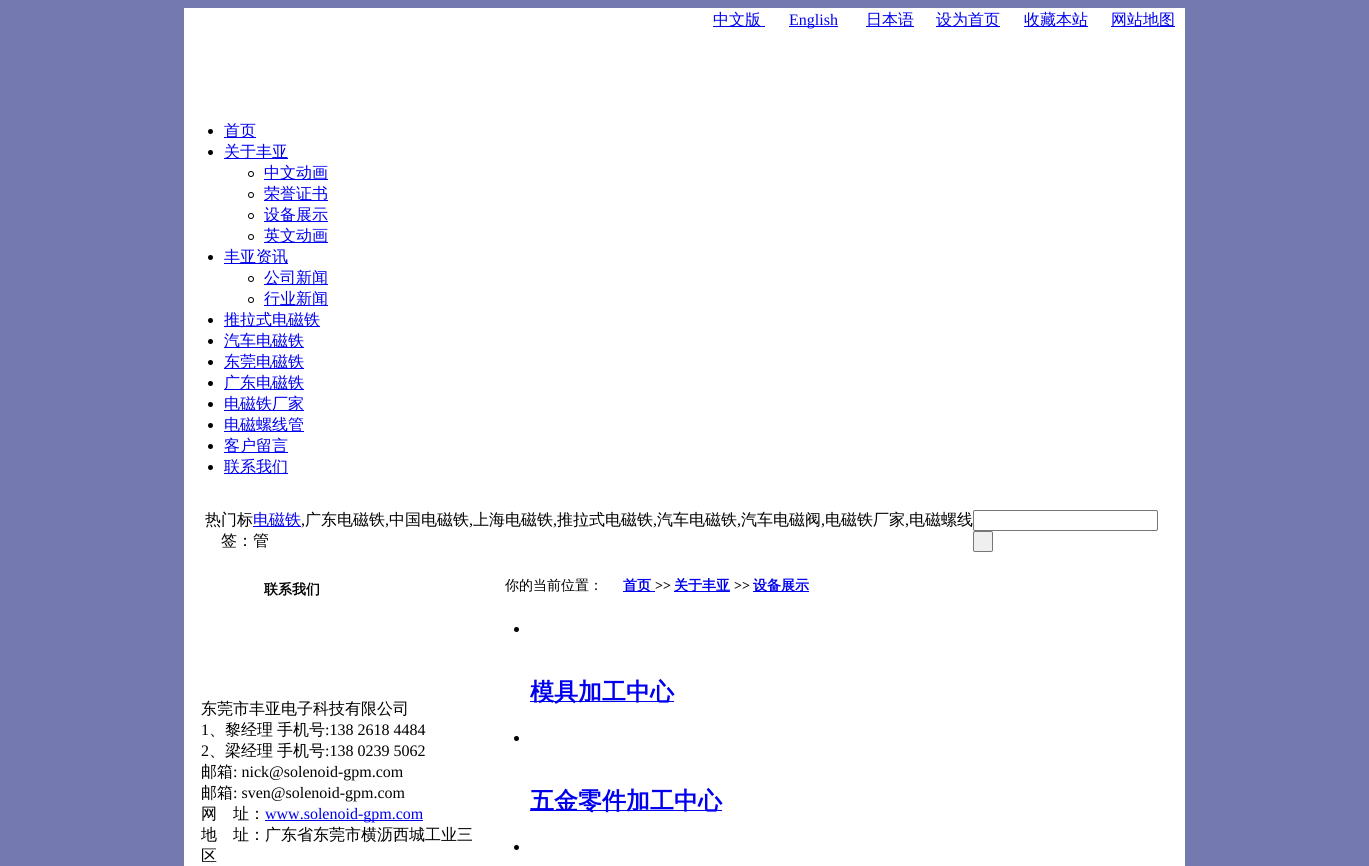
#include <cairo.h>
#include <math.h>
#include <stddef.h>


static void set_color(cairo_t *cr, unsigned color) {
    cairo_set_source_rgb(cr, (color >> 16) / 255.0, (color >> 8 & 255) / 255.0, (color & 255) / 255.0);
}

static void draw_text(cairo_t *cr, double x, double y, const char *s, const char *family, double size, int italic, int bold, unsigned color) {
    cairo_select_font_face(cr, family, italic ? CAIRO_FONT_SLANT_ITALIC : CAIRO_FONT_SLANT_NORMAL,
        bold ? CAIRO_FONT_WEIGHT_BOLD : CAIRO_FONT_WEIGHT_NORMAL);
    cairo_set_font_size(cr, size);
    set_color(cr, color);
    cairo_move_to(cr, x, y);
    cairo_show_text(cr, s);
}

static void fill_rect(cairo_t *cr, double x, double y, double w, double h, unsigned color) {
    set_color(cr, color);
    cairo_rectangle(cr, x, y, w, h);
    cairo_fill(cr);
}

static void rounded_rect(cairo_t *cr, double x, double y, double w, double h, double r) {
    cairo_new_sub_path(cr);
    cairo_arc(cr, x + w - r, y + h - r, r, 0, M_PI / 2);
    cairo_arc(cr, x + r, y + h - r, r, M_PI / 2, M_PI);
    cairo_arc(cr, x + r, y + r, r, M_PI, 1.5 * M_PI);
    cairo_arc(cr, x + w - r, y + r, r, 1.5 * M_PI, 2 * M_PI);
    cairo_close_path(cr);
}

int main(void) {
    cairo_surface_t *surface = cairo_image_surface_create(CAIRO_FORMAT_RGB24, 1369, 866);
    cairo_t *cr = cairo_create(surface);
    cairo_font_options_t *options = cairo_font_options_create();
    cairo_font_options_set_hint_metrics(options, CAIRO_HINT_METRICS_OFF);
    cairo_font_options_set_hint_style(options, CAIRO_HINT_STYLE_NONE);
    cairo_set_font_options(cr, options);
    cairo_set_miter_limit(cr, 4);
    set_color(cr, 0x7479B0);
    cairo_paint(cr);
    fill_rect(cr, 184, 8, 1001, 858, 0xFFFFFF);
    fill_rect(cr, 713, 26, 52, 1, 0x0000EE);
    draw_text(cr, 713, 25, "中文版", "WenQuanYi Zen Hei Medium", 16, 0, 0, 0x0000EE);
    fill_rect(cr, 789, 26, 49, 1, 0x0000EE);
    draw_text(cr, 789, 25, "English", "Liberation Serif", 16, 0, 0, 0x0000EE);
    fill_rect(cr, 866, 26, 48, 1, 0x0000EE);
    draw_text(cr, 866, 25, "日本语", "WenQuanYi Zen Hei Medium", 16, 0, 0, 0x0000EE);
    fill_rect(cr, 936, 26, 64, 1, 0x0000EE);
    draw_text(cr, 936, 25, "设为首页", "WenQuanYi Zen Hei Medium", 16, 0, 0, 0x0000EE);
    fill_rect(cr, 1024, 26, 64, 1, 0x0000EE);
    draw_text(cr, 1024, 25, "收藏本站", "WenQuanYi Zen Hei Medium", 16, 0, 0, 0x0000EE);
    fill_rect(cr, 1111, 26, 64, 1, 0x0000EE);
    draw_text(cr, 1111, 25, "网站地图", "WenQuanYi Zen Hei Medium", 16, 0, 0, 0x0000EE);
    set_color(cr, 0x000000);
    cairo_new_path(cr);
    cairo_arc(cr, 210.5, 131.5, 2.5, 0, 2 * M_PI);
    cairo_fill(cr);
    fill_rect(cr, 224, 137, 32, 1, 0x0000EE);
    draw_text(cr, 224, 136, "首页", "WenQuanYi Zen Hei Medium", 16, 0, 0, 0x0000EE);
    set_color(cr, 0x000000);
    cairo_new_path(cr);
    cairo_arc(cr, 210.5, 152.5, 2.5, 0, 2 * M_PI);
    cairo_fill(cr);
    fill_rect(cr, 224, 158, 64, 1, 0x0000EE);
    draw_text(cr, 224, 157, "关于丰亚", "WenQuanYi Zen Hei Medium", 16, 0, 0, 0x0000EE);
    cairo_new_path(cr);
    cairo_arc(cr, 251, 174, 2.5, 0, 2 * M_PI);
    set_color(cr, 0x000000);
    cairo_set_line_width(cr, 1);
    cairo_stroke(cr);
    fill_rect(cr, 264, 179, 64, 1, 0x0000EE);
    draw_text(cr, 264, 178, "中文动画", "WenQuanYi Zen Hei Medium", 16, 0, 0, 0x0000EE);
    cairo_new_path(cr);
    cairo_arc(cr, 251, 195, 2.5, 0, 2 * M_PI);
    set_color(cr, 0x000000);
    cairo_stroke(cr);
    fill_rect(cr, 264, 200, 64, 1, 0x0000EE);
    draw_text(cr, 264, 199, "荣誉证书", "WenQuanYi Zen Hei Medium", 16, 0, 0, 0x0000EE);
    cairo_new_path(cr);
    cairo_arc(cr, 251, 216, 2.5, 0, 2 * M_PI);
    set_color(cr, 0x000000);
    cairo_stroke(cr);
    fill_rect(cr, 264, 221, 64, 1, 0x0000EE);
    draw_text(cr, 264, 220, "设备展示", "WenQuanYi Zen Hei Medium", 16, 0, 0, 0x0000EE);
    cairo_new_path(cr);
    cairo_arc(cr, 251, 237, 2.5, 0, 2 * M_PI);
    set_color(cr, 0x000000);
    cairo_stroke(cr);
    fill_rect(cr, 264, 242, 64, 1, 0x0000EE);
    draw_text(cr, 264, 241, "英文动画", "WenQuanYi Zen Hei Medium", 16, 0, 0, 0x0000EE);
    set_color(cr, 0x000000);
    cairo_new_path(cr);
    cairo_arc(cr, 210.5, 257.5, 2.5, 0, 2 * M_PI);
    cairo_fill(cr);
    fill_rect(cr, 224, 263, 64, 1, 0x0000EE);
    draw_text(cr, 224, 262, "丰亚资讯", "WenQuanYi Zen Hei Medium", 16, 0, 0, 0x0000EE);
    cairo_new_path(cr);
    cairo_arc(cr, 251, 279, 2.5, 0, 2 * M_PI);
    set_color(cr, 0x000000);
    cairo_stroke(cr);
    fill_rect(cr, 264, 284, 64, 1, 0x0000EE);
    draw_text(cr, 264, 283, "公司新闻", "WenQuanYi Zen Hei Medium", 16, 0, 0, 0x0000EE);
    cairo_new_path(cr);
    cairo_arc(cr, 251, 300, 2.5, 0, 2 * M_PI);
    set_color(cr, 0x000000);
    cairo_stroke(cr);
    fill_rect(cr, 264, 305, 64, 1, 0x0000EE);
    draw_text(cr, 264, 304, "行业新闻", "WenQuanYi Zen Hei Medium", 16, 0, 0, 0x0000EE);
    set_color(cr, 0x000000);
    cairo_new_path(cr);
    cairo_arc(cr, 210.5, 320.5, 2.5, 0, 2 * M_PI);
    cairo_fill(cr);
    fill_rect(cr, 224, 326, 96, 1, 0x0000EE);
    draw_text(cr, 224, 325, "推拉式电磁铁", "WenQuanYi Zen Hei Medium", 16, 0, 0, 0x0000EE);
    set_color(cr, 0x000000);
    cairo_new_path(cr);
    cairo_arc(cr, 210.5, 341.5, 2.5, 0, 2 * M_PI);
    cairo_fill(cr);
    fill_rect(cr, 224, 347, 80, 1, 0x0000EE);
    draw_text(cr, 224, 346, "汽车电磁铁", "WenQuanYi Zen Hei Medium", 16, 0, 0, 0x0000EE);
    set_color(cr, 0x000000);
    cairo_new_path(cr);
    cairo_arc(cr, 210.5, 362.5, 2.5, 0, 2 * M_PI);
    cairo_fill(cr);
    fill_rect(cr, 224, 368, 80, 1, 0x0000EE);
    draw_text(cr, 224, 367, "东莞电磁铁", "WenQuanYi Zen Hei Medium", 16, 0, 0, 0x0000EE);
    set_color(cr, 0x000000);
    cairo_new_path(cr);
    cairo_arc(cr, 210.5, 383.5, 2.5, 0, 2 * M_PI);
    cairo_fill(cr);
    fill_rect(cr, 224, 389, 80, 1, 0x0000EE);
    draw_text(cr, 224, 388, "广东电磁铁", "WenQuanYi Zen Hei Medium", 16, 0, 0, 0x0000EE);
    set_color(cr, 0x000000);
    cairo_new_path(cr);
    cairo_arc(cr, 210.5, 404.5, 2.5, 0, 2 * M_PI);
    cairo_fill(cr);
    fill_rect(cr, 224, 410, 80, 1, 0x0000EE);
    draw_text(cr, 224, 409, "电磁铁厂家", "WenQuanYi Zen Hei Medium", 16, 0, 0, 0x0000EE);
    set_color(cr, 0x000000);
    cairo_new_path(cr);
    cairo_arc(cr, 210.5, 425.5, 2.5, 0, 2 * M_PI);
    cairo_fill(cr);
    fill_rect(cr, 224, 431, 80, 1, 0x0000EE);
    draw_text(cr, 224, 430, "电磁螺线管", "WenQuanYi Zen Hei Medium", 16, 0, 0, 0x0000EE);
    set_color(cr, 0x000000);
    cairo_new_path(cr);
    cairo_arc(cr, 210.5, 446.5, 2.5, 0, 2 * M_PI);
    cairo_fill(cr);
    fill_rect(cr, 224, 452, 64, 1, 0x0000EE);
    draw_text(cr, 224, 451, "客户留言", "WenQuanYi Zen Hei Medium", 16, 0, 0, 0x0000EE);
    set_color(cr, 0x000000);
    cairo_new_path(cr);
    cairo_arc(cr, 210.5, 467.5, 2.5, 0, 2 * M_PI);
    cairo_fill(cr);
    fill_rect(cr, 224, 473, 64, 1, 0x0000EE);
    draw_text(cr, 224, 472, "联系我们", "WenQuanYi Zen Hei Medium", 16, 0, 0, 0x0000EE);
    draw_text(cr, 205, 525, "热门标", "WenQuanYi Zen Hei Medium", 16, 0, 0, 0x000000);
    draw_text(cr, 221, 546, "签：管", "WenQuanYi Zen Hei Medium", 16, 0, 0, 0x000000);
    fill_rect(cr, 253, 526, 48, 1, 0x0000EE);
    draw_text(cr, 253, 525, "电磁铁", "WenQuanYi Zen Hei Medium", 16, 0, 0, 0x0000EE);
    draw_text(cr, 301, 525, ",", "Liberation Serif", 16, 0, 0, 0x000000);
    draw_text(cr, 305, 525, "广东电磁铁", "WenQuanYi Zen Hei Medium", 16, 0, 0, 0x000000);
    draw_text(cr, 385, 525, ",", "Liberation Serif", 16, 0, 0, 0x000000);
    draw_text(cr, 389, 525, "中国电磁铁", "WenQuanYi Zen Hei Medium", 16, 0, 0, 0x000000);
    draw_text(cr, 469, 525, ",", "Liberation Serif", 16, 0, 0, 0x000000);
    draw_text(cr, 473, 525, "上海电磁铁", "WenQuanYi Zen Hei Medium", 16, 0, 0, 0x000000);
    draw_text(cr, 553, 525, ",", "Liberation Serif", 16, 0, 0, 0x000000);
    draw_text(cr, 557, 525, "推拉式电磁铁", "WenQuanYi Zen Hei Medium", 16, 0, 0, 0x000000);
    draw_text(cr, 653, 525, ",", "Liberation Serif", 16, 0, 0, 0x000000);
    draw_text(cr, 657, 525, "汽车电磁铁", "WenQuanYi Zen Hei Medium", 16, 0, 0, 0x000000);
    draw_text(cr, 737, 525, ",", "Liberation Serif", 16, 0, 0, 0x000000);
    draw_text(cr, 741, 525, "汽车电磁阀", "WenQuanYi Zen Hei Medium", 16, 0, 0, 0x000000);
    draw_text(cr, 821, 525, ",", "Liberation Serif", 16, 0, 0, 0x000000);
    draw_text(cr, 825, 525, "电磁铁厂家", "WenQuanYi Zen Hei Medium", 16, 0, 0, 0x000000);
    draw_text(cr, 905, 525, ",", "Liberation Serif", 16, 0, 0, 0x000000);
    draw_text(cr, 909, 525, "电磁螺线", "WenQuanYi Zen Hei Medium", 16, 0, 0, 0x000000);
    rounded_rect(cr, 973.5, 510.5, 184, 20, 1.5);
    set_color(cr, 0x767676);
    cairo_stroke(cr);
    set_color(cr, 0xEFEFEF);
    rounded_rect(cr, 973.5, 531.5, 19, 20, 1.5);
    cairo_fill_preserve(cr);
    set_color(cr, 0x767676);
    cairo_stroke(cr);
    draw_text(cr, 264, 594, "联系我们", "WenQuanYi Zen Hei", 14, 0, 1, 0x000000);
    draw_text(cr, 201, 714, "东莞市丰亚电子科技有限公司", "WenQuanYi Zen Hei Medium", 16, 0, 0, 0x000000);
    draw_text(cr, 201, 735, "1", "Liberation Serif", 16, 0, 0, 0x000000);
    draw_text(cr, 209, 735, "、黎经理", "WenQuanYi Zen Hei Medium", 16, 0, 0, 0x000000);
    draw_text(cr, 277, 735, "手机号", "WenQuanYi Zen Hei Medium", 16, 0, 0, 0x000000);
    draw_text(cr, 325, 735, ":138 2618 4484", "Liberation Serif", 16, 0, 0, 0x000000);
    draw_text(cr, 201, 756, "2", "Liberation Serif", 16, 0, 0, 0x000000);
    draw_text(cr, 209, 756, "、梁经理", "WenQuanYi Zen Hei Medium", 16, 0, 0, 0x000000);
    draw_text(cr, 277, 756, "手机号", "WenQuanYi Zen Hei Medium", 16, 0, 0, 0x000000);
    draw_text(cr, 325, 756, ":138 0239 5062", "Liberation Serif", 16, 0, 0, 0x000000);
    draw_text(cr, 201, 777, "邮箱", "WenQuanYi Zen Hei Medium", 16, 0, 0, 0x000000);
    draw_text(cr, 233, 777, ": nick@solenoid-gpm.com", "Liberation Serif", 16, 0, 0, 0x000000);
    draw_text(cr, 201, 798, "邮箱", "WenQuanYi Zen Hei Medium", 16, 0, 0, 0x000000);
    draw_text(cr, 233, 798, ": sven@solenoid-gpm.com", "Liberation Serif", 16, 0, 0, 0x000000);
    draw_text(cr, 201, 819, "网", "WenQuanYi Zen Hei Medium", 16, 0, 0, 0x000000);
    draw_text(cr, 233, 819, "址：", "WenQuanYi Zen Hei Medium", 16, 0, 0, 0x000000);
    fill_rect(cr, 265, 820, 158, 1, 0x0000EE);
    draw_text(cr, 265, 819, "www.solenoid-gpm.com", "Liberation Serif", 16, 0, 0, 0x0000EE);
    draw_text(cr, 201, 840, "地", "WenQuanYi Zen Hei Medium", 16, 0, 0, 0x000000);
    draw_text(cr, 233, 840, "址：广东省东莞市横沥西城工业三", "WenQuanYi Zen Hei Medium", 16, 0, 0, 0x000000);
    draw_text(cr, 201, 861, "区", "WenQuanYi Zen Hei Medium", 16, 0, 0, 0x000000);
    draw_text(cr, 505, 590, "你的当前位置：", "WenQuanYi Zen Hei Medium", 14, 0, 0, 0x000000);
    fill_rect(cr, 623, 591, 32, 1, 0x0000EE);
    draw_text(cr, 623, 590, "首页", "WenQuanYi Zen Hei", 14, 0, 1, 0x0000EE);
    draw_text(cr, 655, 590, ">>", "Liberation Serif", 14, 0, 1, 0x000000);
    fill_rect(cr, 674, 591, 56, 1, 0x0000EE);
    draw_text(cr, 674, 590, "关于丰亚", "WenQuanYi Zen Hei", 14, 0, 1, 0x0000EE);
    draw_text(cr, 734, 590, ">>", "Liberation Serif", 14, 0, 1, 0x000000);
    fill_rect(cr, 753, 591, 56, 1, 0x0000EE);
    draw_text(cr, 753, 590, "设备展示", "WenQuanYi Zen Hei", 14, 0, 1, 0x0000EE);
    set_color(cr, 0x000000);
    cairo_new_path(cr);
    cairo_arc(cr, 516.5, 629.5, 2.5, 0, 2 * M_PI);
    cairo_fill(cr);
    fill_rect(cr, 530, 701, 144, 1, 0x0000EE);
    draw_text(cr, 530, 700, "模具加工中心", "WenQuanYi Zen Hei", 24, 0, 1, 0x0000EE);
    set_color(cr, 0x000000);
    cairo_new_path(cr);
    cairo_arc(cr, 516.5, 738.5, 2.5, 0, 2 * M_PI);
    cairo_fill(cr);
    fill_rect(cr, 530, 810, 192, 1, 0x0000EE);
    draw_text(cr, 530, 809, "五金零件加工中心", "WenQuanYi Zen Hei", 24, 0, 1, 0x0000EE);
    set_color(cr, 0x000000);
    cairo_new_path(cr);
    cairo_arc(cr, 516.5, 847.5, 2.5, 0, 2 * M_PI);
    cairo_fill(cr);
    cairo_surface_write_to_png(surface, "output.png");
    cairo_font_options_destroy(options);
    cairo_destroy(cr);
    cairo_surface_destroy(surface);
    return 0;
}
